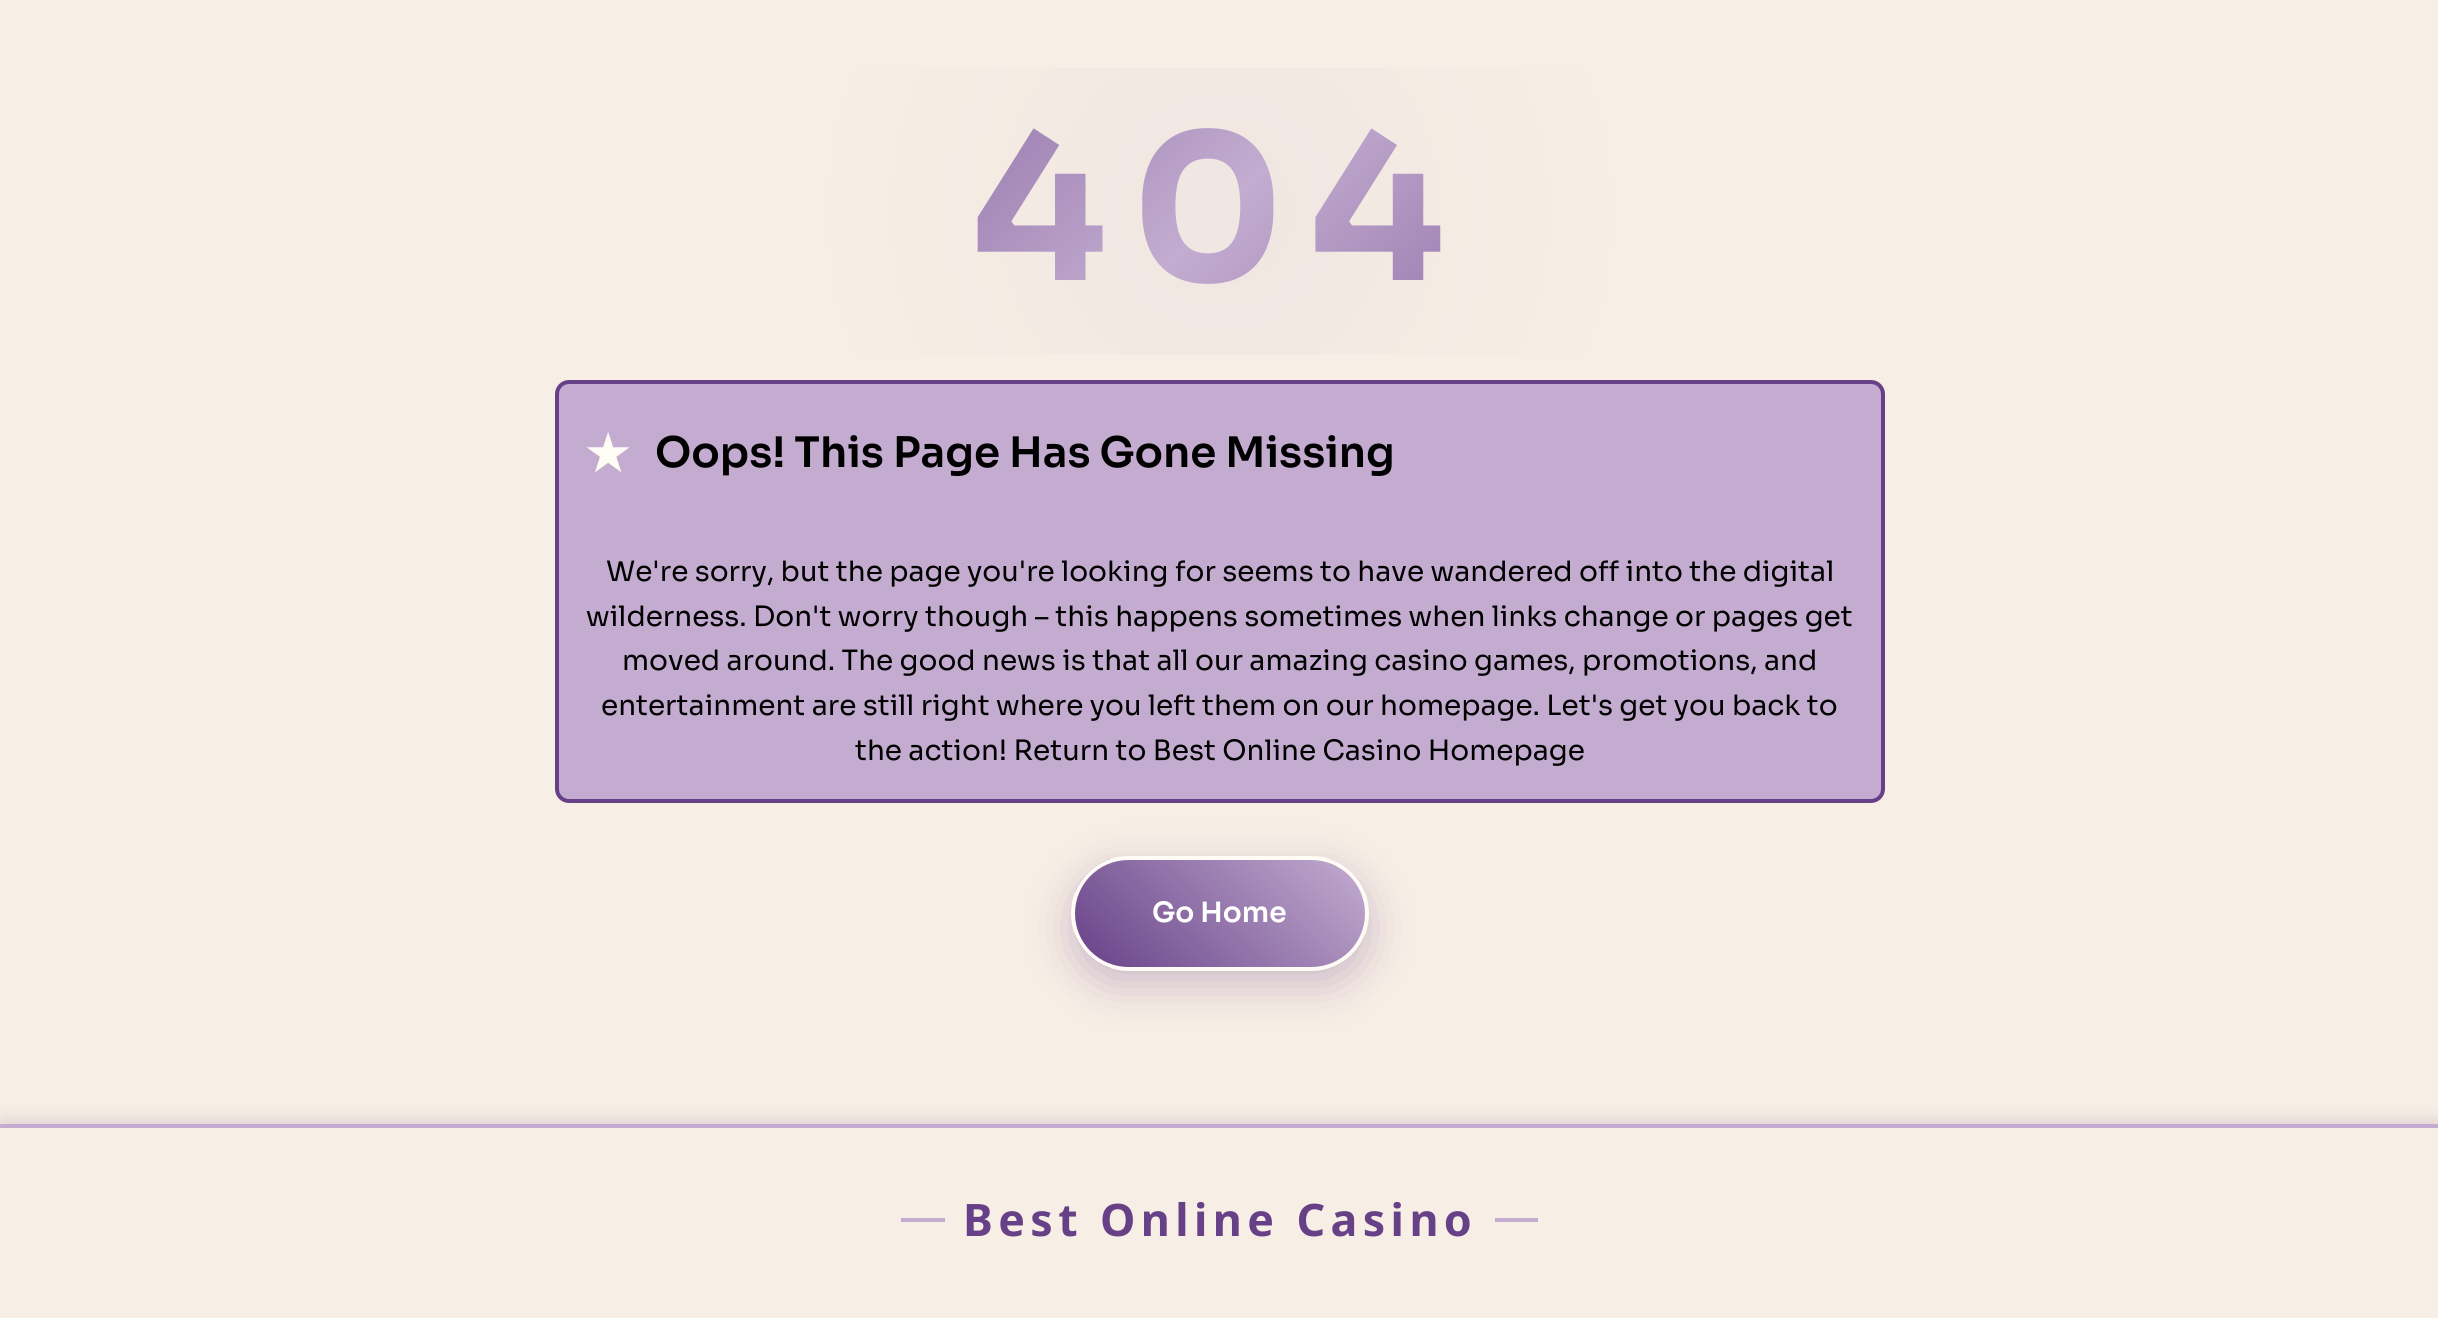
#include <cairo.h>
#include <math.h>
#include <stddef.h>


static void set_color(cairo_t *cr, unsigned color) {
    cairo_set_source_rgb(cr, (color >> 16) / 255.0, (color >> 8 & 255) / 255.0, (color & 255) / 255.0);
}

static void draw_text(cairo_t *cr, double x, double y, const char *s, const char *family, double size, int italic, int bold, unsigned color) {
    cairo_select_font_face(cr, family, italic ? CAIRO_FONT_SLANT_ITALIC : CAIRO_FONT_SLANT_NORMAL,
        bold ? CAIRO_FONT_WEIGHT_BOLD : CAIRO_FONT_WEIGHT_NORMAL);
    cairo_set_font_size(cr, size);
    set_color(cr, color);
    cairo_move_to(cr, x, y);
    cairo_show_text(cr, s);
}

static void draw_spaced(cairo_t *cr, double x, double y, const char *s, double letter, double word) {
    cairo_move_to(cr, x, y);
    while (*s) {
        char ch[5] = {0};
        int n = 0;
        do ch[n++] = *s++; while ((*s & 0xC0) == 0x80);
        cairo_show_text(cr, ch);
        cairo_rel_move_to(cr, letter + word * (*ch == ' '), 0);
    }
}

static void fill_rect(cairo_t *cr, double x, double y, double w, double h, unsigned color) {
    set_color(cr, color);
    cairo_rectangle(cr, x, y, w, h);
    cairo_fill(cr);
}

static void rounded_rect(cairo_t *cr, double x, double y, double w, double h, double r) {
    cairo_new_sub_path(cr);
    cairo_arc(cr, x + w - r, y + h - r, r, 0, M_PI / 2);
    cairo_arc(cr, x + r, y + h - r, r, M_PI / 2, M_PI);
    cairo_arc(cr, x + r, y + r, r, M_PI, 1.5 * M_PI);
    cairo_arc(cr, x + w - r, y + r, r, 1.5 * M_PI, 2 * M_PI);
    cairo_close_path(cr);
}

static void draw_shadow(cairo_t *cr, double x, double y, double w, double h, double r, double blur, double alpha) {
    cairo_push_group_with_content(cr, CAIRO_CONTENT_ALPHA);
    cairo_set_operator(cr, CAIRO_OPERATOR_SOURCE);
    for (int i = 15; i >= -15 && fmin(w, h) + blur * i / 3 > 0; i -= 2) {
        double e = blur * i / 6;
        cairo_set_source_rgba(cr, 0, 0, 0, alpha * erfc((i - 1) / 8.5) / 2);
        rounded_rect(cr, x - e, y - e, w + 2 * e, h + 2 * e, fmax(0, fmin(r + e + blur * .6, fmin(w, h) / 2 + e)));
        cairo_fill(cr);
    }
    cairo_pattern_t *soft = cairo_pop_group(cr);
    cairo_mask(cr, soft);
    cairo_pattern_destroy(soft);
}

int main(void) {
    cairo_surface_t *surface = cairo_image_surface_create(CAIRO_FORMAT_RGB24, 2438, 1318);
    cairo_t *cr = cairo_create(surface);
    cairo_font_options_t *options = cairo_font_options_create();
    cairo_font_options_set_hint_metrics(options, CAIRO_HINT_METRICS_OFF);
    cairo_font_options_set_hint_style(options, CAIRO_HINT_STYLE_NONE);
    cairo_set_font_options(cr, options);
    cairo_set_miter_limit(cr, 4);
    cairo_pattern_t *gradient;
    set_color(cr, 0xF7EFE5);
    cairo_paint(cr);
    gradient = cairo_pattern_create_radial(1220, 212, 0, 1220, 212, 697);
    cairo_pattern_add_color_stop_rgba(gradient, 0, 0.941, 0.902, 0.886, 1);
    cairo_pattern_add_color_stop_rgba(gradient, 0.7, 0.973, 0.941, 0.898, 1);
    cairo_set_source(cr, gradient);
    cairo_pattern_destroy(gradient);
    rounded_rect(cr, 537, 68, 1365, 287, 35);
    cairo_fill(cr);
    cairo_select_font_face(cr, "Sora", CAIRO_FONT_SLANT_NORMAL, CAIRO_FONT_WEIGHT_BOLD);
    cairo_set_font_size(cr, 202);
    gradient = cairo_pattern_create_linear(824, -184, 1615, 607);
    cairo_pattern_add_color_stop_rgba(gradient, 0, 0.404, 0.255, 0.533, 1);
    cairo_pattern_add_color_stop_rgba(gradient, 0.5, 0.765, 0.675, 0.816, 1);
    cairo_pattern_add_color_stop_rgba(gradient, 1, 0.404, 0.255, 0.533, 1);
    cairo_set_source(cr, gradient);
    cairo_pattern_destroy(gradient);
    draw_spaced(cr, 971, 280, "404", 24, 0);
    set_color(cr, 0xC3ACD0);
    rounded_rect(cr, 557, 382, 1326, 419, 12);
    cairo_fill_preserve(cr);
    set_color(cr, 0x674188);
    cairo_set_line_width(cr, 4);
    cairo_stroke(cr);
    draw_text(cr, 585, 471, "★", "DejaVu Sans", 50, 0, 1, 0xFFFBF5);
    draw_text(cr, 655, 467, "Oops! This Page Has Gone Missing", "Sora SemiBold", 42, 0, 0, 0x000000);
    draw_text(cr, 606, 581, "We're sorry, but the page you're looking for seems to have wandered off into the digital", "Sora", 28, 0, 0, 0x000000);
    draw_text(cr, 586, 626, "wilderness. Don't worry though – this happens sometimes when links change or pages get", "Sora", 28, 0, 0, 0x000000);
    draw_text(cr, 622, 670, "moved around. The good news is that all our amazing casino games, promotions, and", "Sora", 28, 0, 0, 0x000000);
    draw_text(cr, 601, 715, "entertainment are still right where you left them on our homepage. Let's get you back to", "Sora", 28, 0, 0, 0x000000);
    draw_text(cr, 855, 760, "the action! Return to Best Online Casino Homepage", "Sora", 28, 0, 0, 0x000000);
    set_color(cr, 0x674188);
    draw_shadow(cr, 1071, 870, 298, 115, 57.5, 22, 0.3);
    cairo_save(cr);
    rounded_rect(cr, 1071, 856, 298, 115, 57.5);
    cairo_clip(cr);
    gradient = cairo_pattern_create_linear(1120, 1013, 1320, 814);
    cairo_pattern_add_color_stop_rgba(gradient, 0, 0.404, 0.255, 0.533, 1);
    cairo_pattern_add_color_stop_rgba(gradient, 1, 0.765, 0.675, 0.816, 1);
    cairo_set_source(cr, gradient);
    cairo_pattern_destroy(gradient);
    cairo_rectangle(cr, 1075, 859, 290, 109);
    cairo_fill(cr);
    cairo_restore(cr);
    rounded_rect(cr, 1073, 858, 294, 111, 55.5);
    set_color(cr, 0xFFFBF5);
    cairo_stroke(cr);
    draw_text(cr, 1152, 922, "Go Home", "Sora SemiBold", 28, 0, 0, 0xFFFFFF);
    set_color(cr, 0x674188);
    draw_shadow(cr, 0, 1118, 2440, 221, 0, 7, 0.15);
    fill_rect(cr, 0, 1128, 2438, 190, 0xF7EFE5);
    fill_rect(cr, 0, 1124, 2438, 4, 0xC3ACD0);
    fill_rect(cr, 901, 1218, 44, 4, 0xC3ACD0);
    cairo_select_font_face(cr, "Noto Sans", CAIRO_FONT_SLANT_NORMAL, CAIRO_FONT_WEIGHT_BOLD);
    cairo_set_font_size(cr, 44.75);
    set_color(cr, 0x674188);
    draw_spaced(cr, 963, 1236, "Best Online Casino", 5.4, 0);
    fill_rect(cr, 1495, 1218, 43, 4, 0xC3ACD0);
    cairo_surface_write_to_png(surface, "output.png");
    cairo_font_options_destroy(options);
    cairo_destroy(cr);
    cairo_surface_destroy(surface);
    return 0;
}
